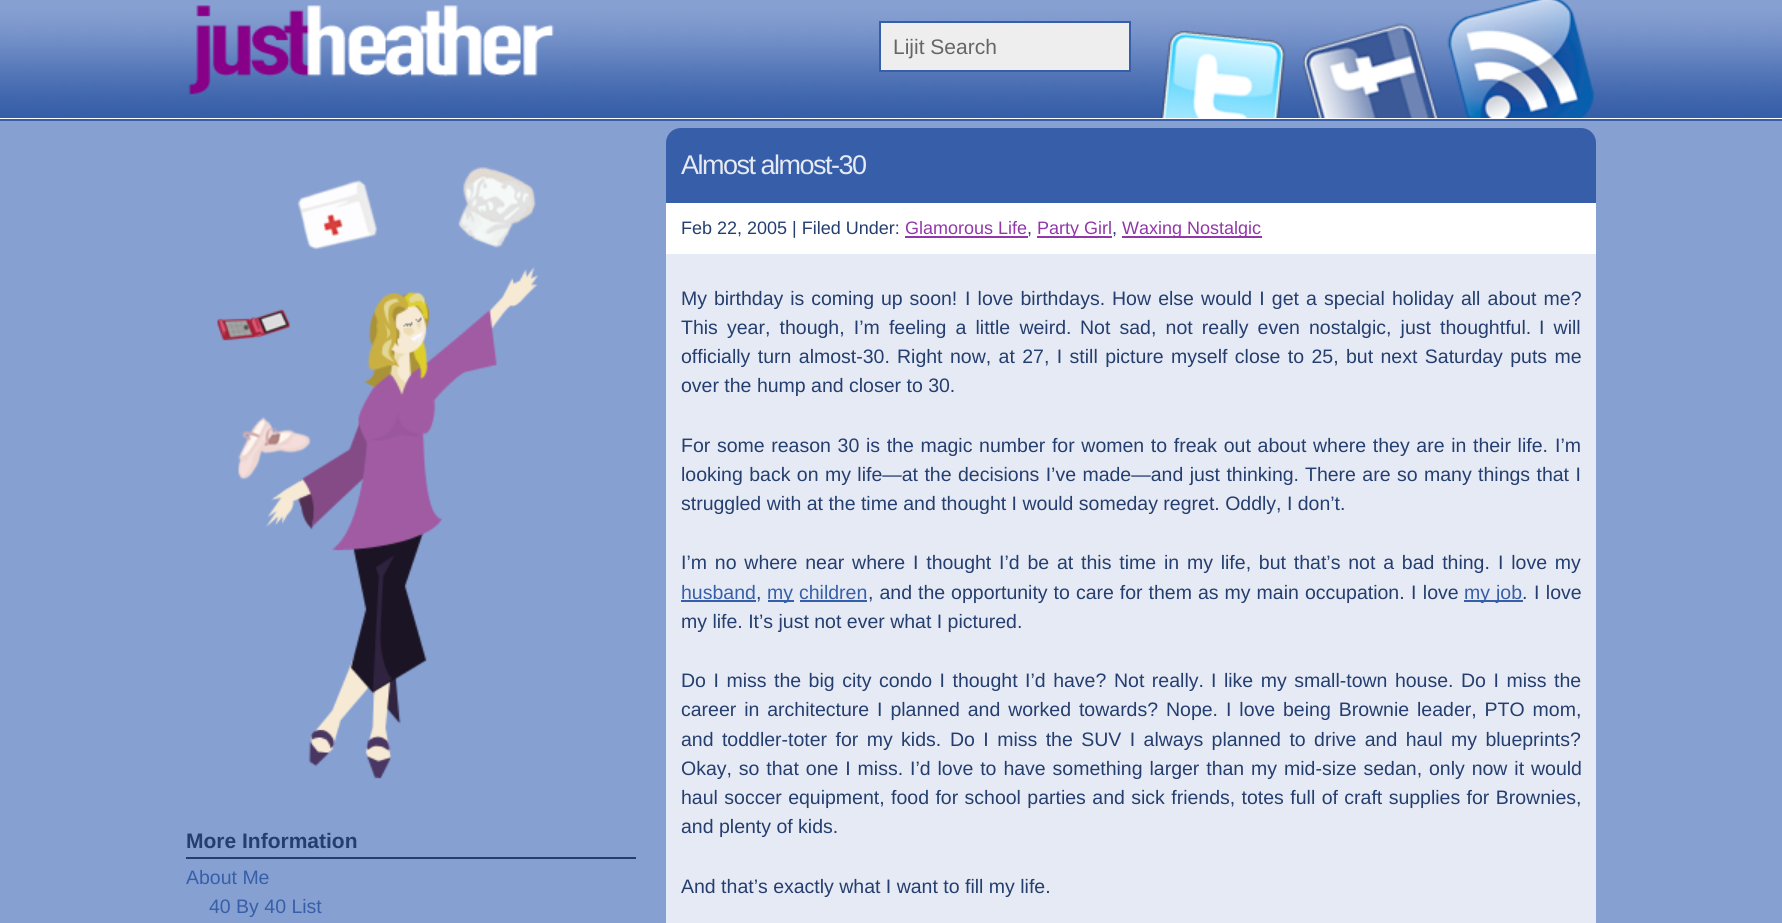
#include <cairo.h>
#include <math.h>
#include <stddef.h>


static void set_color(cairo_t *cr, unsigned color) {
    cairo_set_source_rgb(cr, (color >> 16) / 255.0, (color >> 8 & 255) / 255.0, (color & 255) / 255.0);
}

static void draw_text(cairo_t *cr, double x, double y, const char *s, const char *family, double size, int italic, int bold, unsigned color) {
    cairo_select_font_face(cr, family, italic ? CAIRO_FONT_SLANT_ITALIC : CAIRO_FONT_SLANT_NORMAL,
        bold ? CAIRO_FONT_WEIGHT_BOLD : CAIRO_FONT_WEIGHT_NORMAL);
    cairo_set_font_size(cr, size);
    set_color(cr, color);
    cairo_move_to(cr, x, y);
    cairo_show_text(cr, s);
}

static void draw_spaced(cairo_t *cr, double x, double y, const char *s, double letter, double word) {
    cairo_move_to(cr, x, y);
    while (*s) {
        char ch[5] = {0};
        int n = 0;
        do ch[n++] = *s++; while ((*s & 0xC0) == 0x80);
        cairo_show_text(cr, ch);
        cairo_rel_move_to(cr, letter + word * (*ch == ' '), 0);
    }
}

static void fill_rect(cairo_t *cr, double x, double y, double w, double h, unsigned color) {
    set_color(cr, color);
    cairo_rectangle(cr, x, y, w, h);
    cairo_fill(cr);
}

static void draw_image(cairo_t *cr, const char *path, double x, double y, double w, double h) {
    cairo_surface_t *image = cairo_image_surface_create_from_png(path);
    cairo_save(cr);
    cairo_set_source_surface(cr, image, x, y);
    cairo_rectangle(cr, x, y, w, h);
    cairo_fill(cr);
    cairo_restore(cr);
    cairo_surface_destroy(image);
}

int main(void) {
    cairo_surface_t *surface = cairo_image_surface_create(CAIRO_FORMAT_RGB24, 1782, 923);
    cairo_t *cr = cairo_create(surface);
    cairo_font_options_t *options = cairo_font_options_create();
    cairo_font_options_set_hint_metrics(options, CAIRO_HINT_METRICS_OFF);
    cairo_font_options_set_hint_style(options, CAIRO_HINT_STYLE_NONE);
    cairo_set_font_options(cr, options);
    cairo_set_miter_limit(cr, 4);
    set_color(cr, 0x87A0D2);
    cairo_paint(cr);
    fill_rect(cr, 0, 118, 1782, 1, 0xFFFFFF);
    draw_image(cr, "assets/img1.png", 0, 0, 1782, 118);
    fill_rect(cr, 0, 119, 1782, 2, 0x375FA9);
    draw_image(cr, "assets/img2.png", 188, 5, 366, 90);
    set_color(cr, 0xEEEEEE);
    cairo_rectangle(cr, 880, 22, 250, 49);
    cairo_fill_preserve(cr);
    set_color(cr, 0x375FA9);
    cairo_stroke(cr);
    draw_text(cr, 893, 54, "Lijit Search", "Liberation Sans", 21, 0, 0, 0x666666);
    draw_image(cr, "assets/img3.png", 1160, 30, 126, 88);
    draw_image(cr, "assets/img4.png", 1302, 23, 137, 95);
    draw_image(cr, "assets/img5.png", 1447, 0, 148, 118);
    draw_image(cr, "assets/img6.png", 217, 166, 322, 613);
    fill_rect(cr, 186, 857, 450, 2, 0x243E6F);
    draw_text(cr, 186, 848, "More Information", "Liberation Sans", 21, 0, 1, 0x243E6F);
    draw_text(cr, 186, 884, "About Me", "Liberation Sans", 19.5, 0, 0, 0x375FA9);
    draw_text(cr, 209, 913, "40 By 40 List", "Liberation Sans", 19.5, 0, 0, 0x375FA9);
    cairo_new_path(cr);
    cairo_move_to(cr, 681, 128);
    cairo_line_to(cr, 1581, 128);
    cairo_curve_to(cr, 1589.5, 128, 1596, 134.5, 1596, 143);
    cairo_line_to(cr, 1596, 203);
    cairo_line_to(cr, 666, 203);
    cairo_line_to(cr, 666, 143);
    cairo_curve_to(cr, 666, 134.5, 672.5, 128, 681, 128);
    cairo_close_path(cr);
    cairo_fill(cr);
    cairo_set_font_size(cr, 27);
    set_color(cr, 0xE6EAF4);
    draw_spaced(cr, 681, 174, "Almost almost-30", -1.5, 0);
    fill_rect(cr, 666, 203, 930, 51, 0xFFFFFF);
    draw_text(cr, 681, 234, "Feb 22, 2005 | Filed Under:", "Liberation Sans", 18, 0, 0, 0x243E6F);
    draw_text(cr, 905, 234, "Glamorous Life", "Liberation Sans", 18, 0, 0, 0x9237A9);
    fill_rect(cr, 905, 236, 123, 2, 0x9237A9);
    draw_text(cr, 1027, 234, ",", "Liberation Sans", 18, 0, 0, 0x243E6F);
    fill_rect(cr, 1037, 236, 75, 2, 0x9237A9);
    draw_text(cr, 1037, 234, "Party Girl", "Liberation Sans", 18, 0, 0, 0x9237A9);
    draw_text(cr, 1112, 234, ",", "Liberation Sans", 18, 0, 0, 0x243E6F);
    fill_rect(cr, 1122, 236, 140, 2, 0x9237A9);
    draw_text(cr, 1122, 234, "Waxing Nostalgic", "Liberation Sans", 18, 0, 0, 0x9237A9);
    fill_rect(cr, 666, 254, 930, 669, 0xE6EAF4);
    cairo_set_font_size(cr, 19.5);
    set_color(cr, 0x243E6F);
    draw_spaced(cr, 681, 305, "My birthday is coming up soon!", 0, 1.5);
    draw_spaced(cr, 965, 305, "I love birthdays.", 0, 1.75);
    draw_spaced(cr, 1112, 305, "How else would I get a special holiday all about me?", 0, 1.75);
    draw_spaced(cr, 681, 334, "This year, though, I’m feeling a little weird.", 0, 3.75);
    draw_spaced(cr, 1080, 334, "Not sad, not really even nostalgic, just thoughtful.", 0, 3.75);
    draw_spaced(cr, 1539, 334, "I will", 0, 3.75);
    draw_spaced(cr, 681, 363, "officially turn almost-30.", 0, 2);
    draw_spaced(cr, 897, 363, "Right now, at 27, I still picture myself close to 25, but next Saturday puts me", 0, 2);
    draw_text(cr, 681, 392, "over the hump and closer to 30.", "Liberation Sans", 19.5, 0, 0, 0x243E6F);
    draw_spaced(cr, 681, 452, "For some reason 30 is the magic number for women to freak out about where they are in their life.", 0, 1.25);
    draw_text(cr, 1555, 452, "I’m", "Liberation Sans", 19.5, 0, 0, 0x243E6F);
    draw_spaced(cr, 681, 481, "looking back on my life—at the decisions I’ve made—and just thinking.", 0, 1);
    draw_spaced(cr, 1305, 481, "There are so many things that I", 0, 1);
    draw_text(cr, 681, 510, "struggled with at the time and thought I would someday regret. Oddly, I don’t.", "Liberation Sans", 19.5, 0, 0, 0x243E6F);
    draw_spaced(cr, 681, 569, "I’m no where near where I thought I’d be at this time in my life, but that’s not a bad thing.", 0, 2.4);
    draw_spaced(cr, 1498, 569, "I love my", 0, 2.4);
    draw_text(cr, 681, 599, "husband", "Liberation Sans", 19.5, 0, 0, 0x375FA9);
    fill_rect(cr, 681, 600, 75, 2, 0x375FA9);
    draw_text(cr, 756, 599, ",", "Liberation Sans", 19.5, 0, 0, 0x243E6F);
    fill_rect(cr, 768, 600, 26, 2, 0x375FA9);
    draw_text(cr, 767, 599, "my", "Liberation Sans", 19.5, 0, 0, 0x375FA9);
    draw_text(cr, 799, 599, "children", "Liberation Sans", 19.5, 0, 0, 0x375FA9);
    fill_rect(cr, 800, 600, 67, 2, 0x375FA9);
    set_color(cr, 0x243E6F);
    draw_spaced(cr, 868, 599, ", and the opportunity to care for them as my main occupation.", 0, 0.6);
    draw_spaced(cr, 1411, 599, "I love", 0, 1);
    fill_rect(cr, 1464, 600, 59, 2, 0x375FA9);
    draw_spaced(cr, 1464, 599, "my job", 0, 0.6);
    draw_text(cr, 1522, 599, ".", "Liberation Sans", 19.5, 0, 0, 0x243E6F);
    draw_spaced(cr, 1534, 599, "I love", 0, 1);
    draw_text(cr, 681, 628, "my life. It’s just not ever what I pictured.", "Liberation Sans", 19.5, 0, 0, 0x243E6F);
    draw_spaced(cr, 681, 687, "Do I miss the big city condo I thought I’d have?", 0, 2.1);
    draw_spaced(cr, 1114, 687, "Not really.", 0, 2.1);
    draw_spaced(cr, 1211, 687, "I like my small-town house.", 0, 2.1);
    draw_spaced(cr, 1461, 687, "Do I miss the", 0, 2.1);
    draw_spaced(cr, 681, 716, "career in architecture I planned and worked towards?", 0, 2.5);
    draw_text(cr, 1166, 716, "Nope.", "Liberation Sans", 19.5, 0, 0, 0x243E6F);
    draw_spaced(cr, 1226, 716, "I love being Brownie leader, PTO mom,", 0, 2.5);
    draw_spaced(cr, 681, 746, "and toddler-toter for my kids.", 0, 3);
    draw_spaced(cr, 950, 746, "Do I miss the SUV I always planned to drive and haul my blueprints?", 0, 3);
    draw_spaced(cr, 681, 775, "Okay, so that one I miss.", 0, 1.5);
    draw_spaced(cr, 910, 775, "I’d love to have something larger than my mid-size sedan, only now it would", 0, 1.5);
    draw_spaced(cr, 681, 804, "haul soccer equipment, food for school parties and sick friends, totes full of craft supplies for Brownies,", 0, 1);
    draw_text(cr, 681, 833, "and plenty of kids.", "Liberation Sans", 19.5, 0, 0, 0x243E6F);
    draw_text(cr, 681, 893, "And that’s exactly what I want to fill my life.", "Liberation Sans", 19.5, 0, 0, 0x243E6F);
    cairo_surface_write_to_png(surface, "output.png");
    cairo_font_options_destroy(options);
    cairo_destroy(cr);
    cairo_surface_destroy(surface);
    return 0;
}
